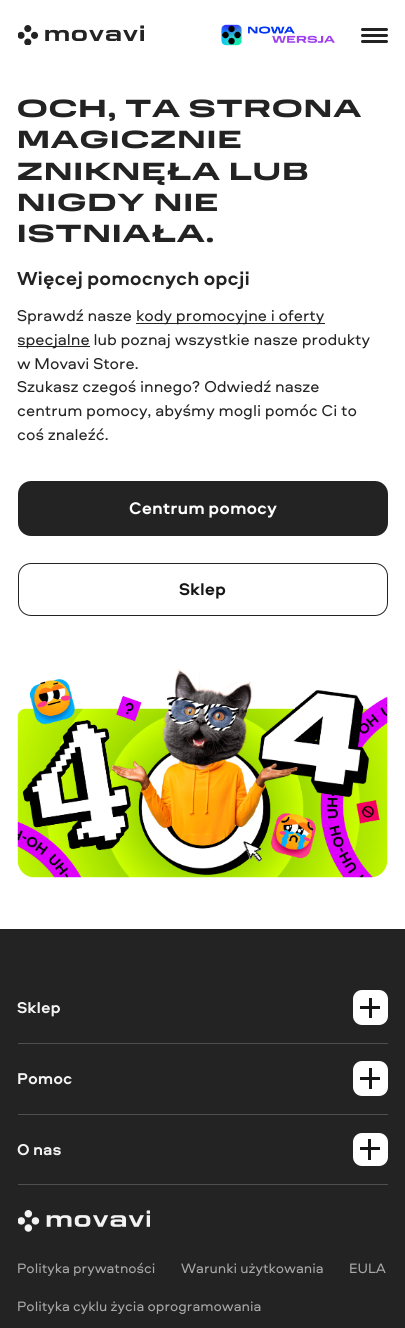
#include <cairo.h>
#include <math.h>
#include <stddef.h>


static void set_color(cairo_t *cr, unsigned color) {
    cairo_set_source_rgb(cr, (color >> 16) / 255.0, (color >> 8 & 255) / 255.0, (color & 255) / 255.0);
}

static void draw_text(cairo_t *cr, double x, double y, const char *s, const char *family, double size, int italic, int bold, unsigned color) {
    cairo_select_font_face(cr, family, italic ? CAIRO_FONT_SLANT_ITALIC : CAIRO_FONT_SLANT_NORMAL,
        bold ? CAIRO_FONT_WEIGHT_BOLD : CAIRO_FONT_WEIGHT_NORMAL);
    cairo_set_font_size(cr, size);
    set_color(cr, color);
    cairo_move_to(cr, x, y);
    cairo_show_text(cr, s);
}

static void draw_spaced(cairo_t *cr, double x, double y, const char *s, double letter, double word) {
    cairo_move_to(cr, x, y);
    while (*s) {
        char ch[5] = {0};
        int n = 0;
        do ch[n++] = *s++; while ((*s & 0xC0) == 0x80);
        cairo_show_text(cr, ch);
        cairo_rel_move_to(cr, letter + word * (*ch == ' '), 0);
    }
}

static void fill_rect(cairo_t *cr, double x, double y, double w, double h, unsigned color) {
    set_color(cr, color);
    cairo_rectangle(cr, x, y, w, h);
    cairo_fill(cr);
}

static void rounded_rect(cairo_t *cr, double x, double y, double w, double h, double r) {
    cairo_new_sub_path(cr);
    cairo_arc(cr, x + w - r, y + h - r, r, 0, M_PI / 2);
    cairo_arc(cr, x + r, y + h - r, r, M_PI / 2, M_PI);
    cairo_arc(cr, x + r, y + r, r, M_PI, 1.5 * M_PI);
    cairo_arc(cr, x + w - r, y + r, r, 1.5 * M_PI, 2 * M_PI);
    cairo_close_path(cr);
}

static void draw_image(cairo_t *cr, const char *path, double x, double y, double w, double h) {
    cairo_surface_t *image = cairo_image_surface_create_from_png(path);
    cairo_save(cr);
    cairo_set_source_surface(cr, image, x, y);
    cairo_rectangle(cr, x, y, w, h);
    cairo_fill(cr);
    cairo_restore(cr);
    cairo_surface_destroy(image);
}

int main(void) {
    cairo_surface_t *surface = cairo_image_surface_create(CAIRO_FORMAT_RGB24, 405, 1328);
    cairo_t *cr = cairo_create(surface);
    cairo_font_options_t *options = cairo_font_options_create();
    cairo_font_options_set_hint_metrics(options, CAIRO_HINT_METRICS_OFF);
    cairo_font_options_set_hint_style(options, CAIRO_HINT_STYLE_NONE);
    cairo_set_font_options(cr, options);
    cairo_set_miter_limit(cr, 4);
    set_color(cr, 0xFFFFFF);
    cairo_paint(cr);
    draw_image(cr, "assets/img1.png", 18, 25, 126, 20);
    draw_image(cr, "assets/img2.png", 221, 24, 114, 22);
    set_color(cr, 0x232323);
    rounded_rect(cr, 361, 34, 27, 3, 1.5);
    cairo_fill(cr);
    rounded_rect(cr, 361, 28, 27, 3, 1.5);
    cairo_fill(cr);
    rounded_rect(cr, 361, 40, 27, 3, 1.5);
    cairo_fill(cr);
    cairo_select_font_face(cr, "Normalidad", CAIRO_FONT_SLANT_NORMAL, CAIRO_FONT_WEIGHT_BOLD);
    cairo_set_font_size(cr, 25);
    draw_spaced(cr, 17, 117, "OCH, TA STRONA", 1.25, 0);
    draw_spaced(cr, 17, 148, "MAGICZNIE", 1.25, 0);
    draw_spaced(cr, 17, 180, "ZNIKNĘŁA LUB", 1.25, 0);
    draw_spaced(cr, 17, 211, "NIGDY NIE", 1.25, 0);
    draw_spaced(cr, 17, 242, "ISTNIAŁA.", 1.25, 0);
    draw_text(cr, 17, 285, "Więcej pomocnych opcji", "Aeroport", 19.6, 0, 1, 0x232323);
    draw_text(cr, 17, 321, "Sprawdź nasze", "Aeroport", 16.3, 0, 0, 0x232323);
    fill_rect(cr, 136, 323, 189, 1, 0x232323);
    draw_text(cr, 136, 321, "kody promocyjne i oferty", "Aeroport", 16.3, 0, 0, 0x232323);
    fill_rect(cr, 18, 346, 72, 1, 0x232323);
    draw_text(cr, 17, 345, "specjalne lub poznaj wszystkie nasze produkty", "Aeroport", 16.3, 0, 0, 0x232323);
    draw_text(cr, 17, 369, "w Movavi Store.", "Aeroport", 16.3, 0, 0, 0x232323);
    draw_text(cr, 17, 392, "Szukasz czegoś innego? Odwiedź nasze", "Aeroport", 16.3, 0, 0, 0x232323);
    draw_text(cr, 17, 416, "centrum pomocy, abyśmy mogli pomóc Ci to", "Aeroport", 16.3, 0, 0, 0x232323);
    draw_text(cr, 17, 440, "coś znaleźć.", "Aeroport", 16.3, 0, 0, 0x232323);
    rounded_rect(cr, 18, 481, 370, 55, 13);
    cairo_fill(cr);
    draw_text(cr, 129, 514, "Centrum pomocy", "Aeroport", 17.5, 0, 1, 0xFFFFFF);
    rounded_rect(cr, 18.5, 563.5, 369, 52, 12.5);
    set_color(cr, 0x232323);
    cairo_set_line_width(cr, 1);
    cairo_stroke(cr);
    draw_text(cr, 179, 595, "Sklep", "Aeroport", 17.5, 0, 1, 0x161616);
    draw_image(cr, "assets/img3.png", 17, 669, 371, 209);
    fill_rect(cr, 0, 929, 405, 399, 0x232323);
    fill_rect(cr, 18, 1043, 370, 1, 0x4F4F4F);
    draw_text(cr, 17, 1013, "Sklep", "Aeroport", 16.3, 0, 1, 0xF3F3F3);
    set_color(cr, 0xFFFFFF);
    rounded_rect(cr, 353, 990, 35, 35, 9);
    cairo_fill(cr);
    fill_rect(cr, 360, 1006, 20, 3, 0x161616);
    fill_rect(cr, 369, 998, 3, 20, 0x161616);
    fill_rect(cr, 18, 1114, 370, 1, 0x4F4F4F);
    draw_text(cr, 17, 1084, "Pomoc", "Aeroport", 16.3, 0, 1, 0xF3F3F3);
    set_color(cr, 0xFFFFFF);
    rounded_rect(cr, 353, 1061, 35, 35, 9);
    cairo_fill(cr);
    fill_rect(cr, 360, 1077, 20, 3, 0x161616);
    fill_rect(cr, 369, 1068, 3, 21, 0x161616);
    fill_rect(cr, 18, 1184, 370, 1, 0x4F4F4F);
    draw_text(cr, 17, 1155, "O nas", "Aeroport", 16.3, 0, 1, 0xF3F3F3);
    set_color(cr, 0xFFFFFF);
    rounded_rect(cr, 353, 1133, 35, 33, 9);
    cairo_fill(cr);
    fill_rect(cr, 360, 1147, 20, 3, 0x161616);
    fill_rect(cr, 368, 1139, 3, 21, 0x161616);
    draw_image(cr, "assets/img4.png", 18, 1210, 132, 22);
    draw_text(cr, 17, 1273, "Polityka prywatności", "Aeroport", 14.2, 0, 0, 0xA8A8A8);
    draw_text(cr, 181, 1273, "Warunki użytkowania", "Aeroport", 14.2, 0, 0, 0xA8A8A8);
    draw_text(cr, 349, 1273, "EULA", "Aeroport", 14.2, 0, 0, 0xA8A8A8);
    draw_text(cr, 17, 1311, "Polityka cyklu życia oprogramowania", "Aeroport", 14.2, 0, 0, 0xA8A8A8);
    cairo_surface_write_to_png(surface, "output.png");
    cairo_font_options_destroy(options);
    cairo_destroy(cr);
    cairo_surface_destroy(surface);
    return 0;
}
